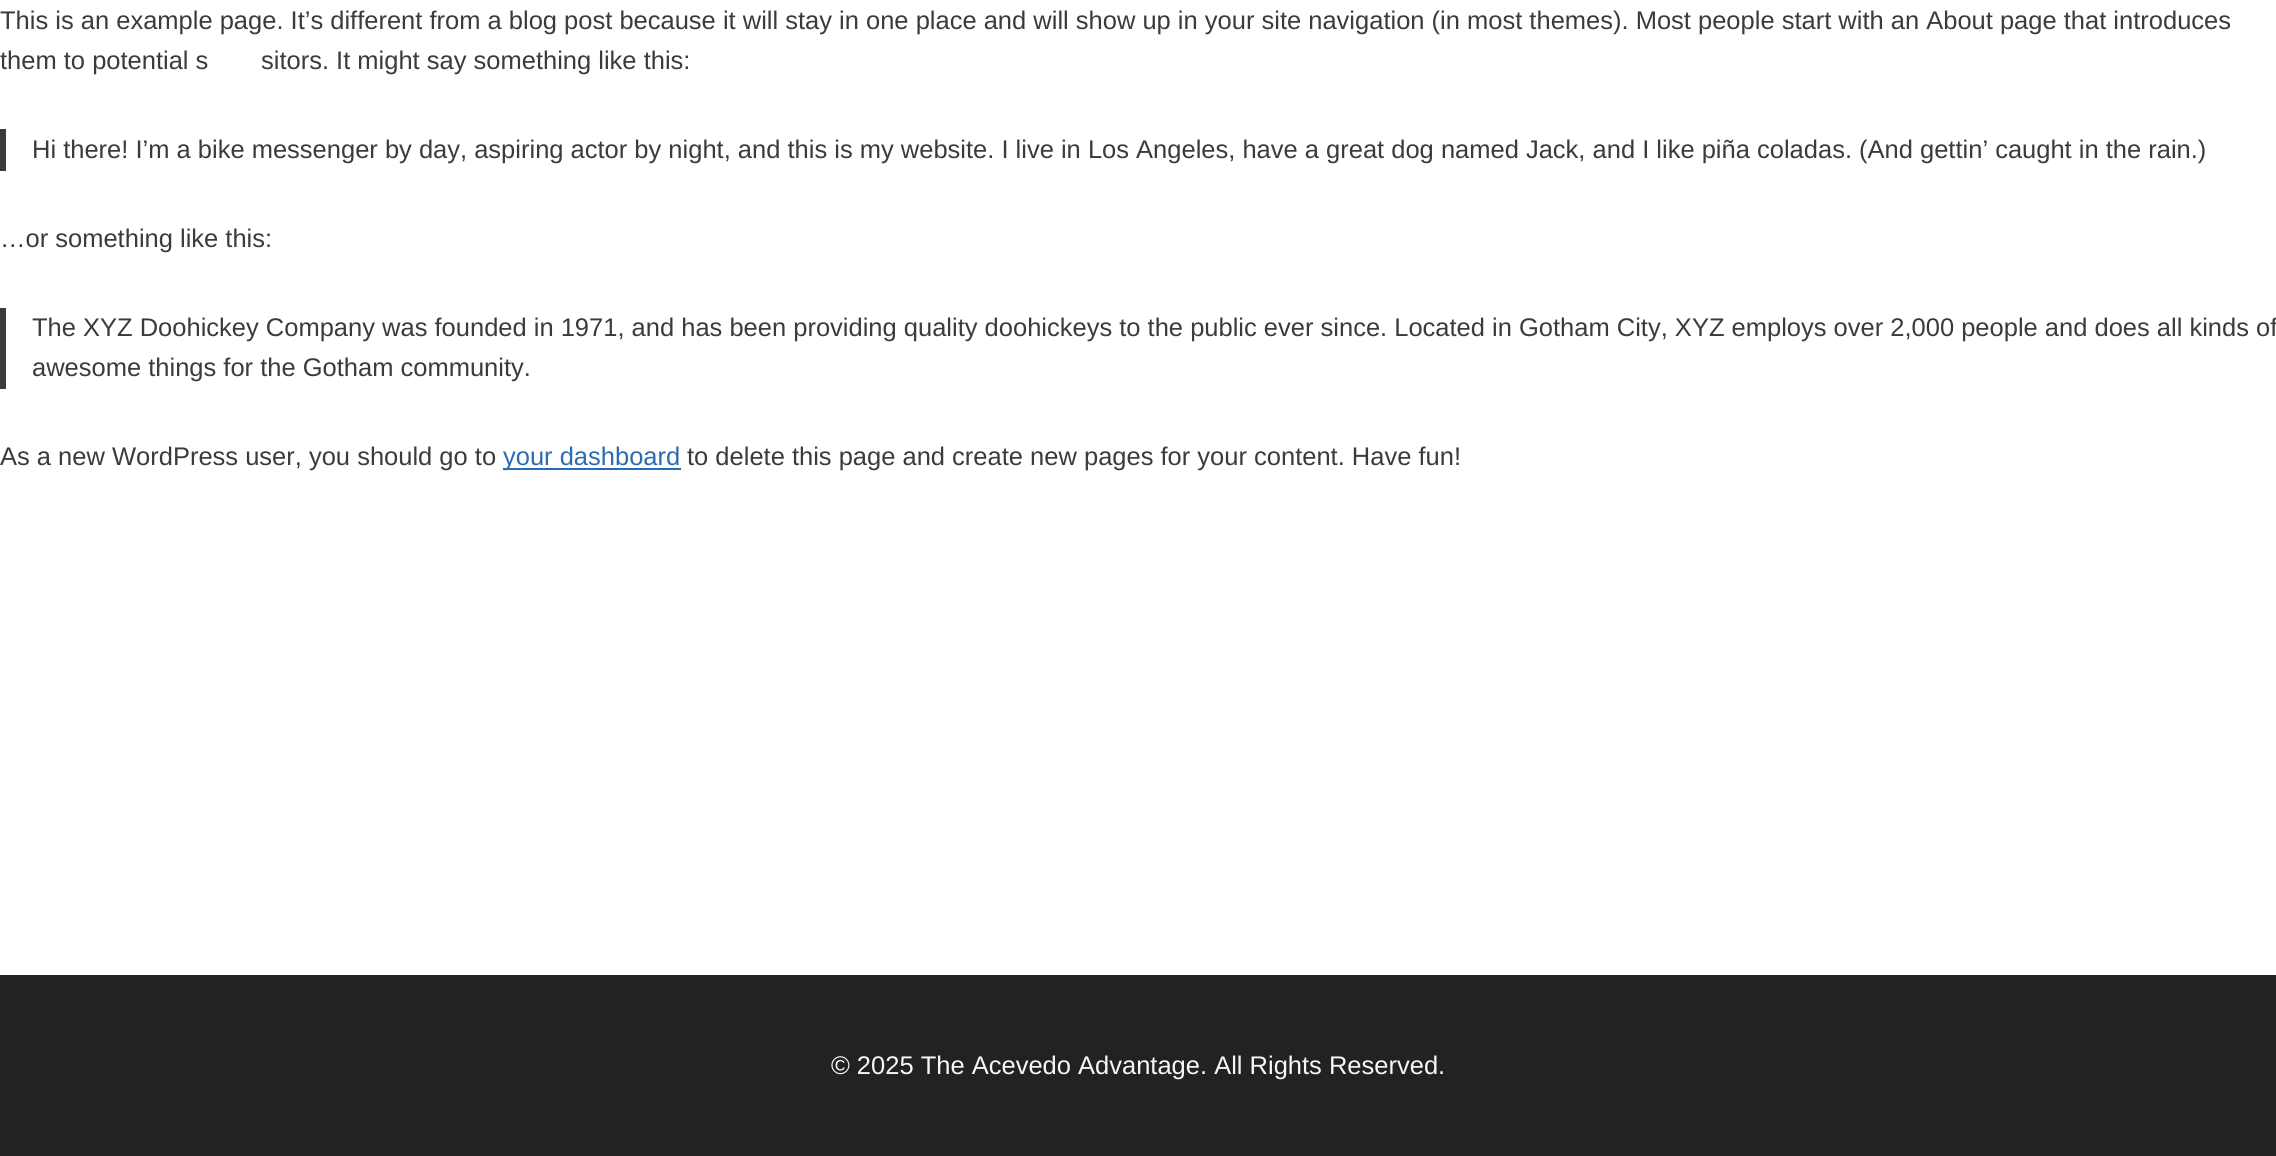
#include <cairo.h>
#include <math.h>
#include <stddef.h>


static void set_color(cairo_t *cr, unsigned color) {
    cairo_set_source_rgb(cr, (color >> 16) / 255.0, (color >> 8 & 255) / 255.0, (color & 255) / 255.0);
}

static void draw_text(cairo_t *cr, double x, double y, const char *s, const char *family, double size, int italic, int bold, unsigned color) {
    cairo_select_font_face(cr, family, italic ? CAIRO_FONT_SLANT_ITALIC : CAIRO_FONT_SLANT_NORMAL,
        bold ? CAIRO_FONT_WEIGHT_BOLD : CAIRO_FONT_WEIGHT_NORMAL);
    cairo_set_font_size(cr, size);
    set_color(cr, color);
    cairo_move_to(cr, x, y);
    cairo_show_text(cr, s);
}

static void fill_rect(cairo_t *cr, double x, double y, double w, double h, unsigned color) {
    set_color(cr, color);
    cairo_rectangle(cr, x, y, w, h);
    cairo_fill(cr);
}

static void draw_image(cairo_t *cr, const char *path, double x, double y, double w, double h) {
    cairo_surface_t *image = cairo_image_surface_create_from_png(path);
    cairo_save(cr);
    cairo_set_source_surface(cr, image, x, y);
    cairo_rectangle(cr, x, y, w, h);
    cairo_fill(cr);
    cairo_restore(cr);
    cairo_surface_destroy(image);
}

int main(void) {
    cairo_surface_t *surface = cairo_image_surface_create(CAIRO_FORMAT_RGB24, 2276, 1156);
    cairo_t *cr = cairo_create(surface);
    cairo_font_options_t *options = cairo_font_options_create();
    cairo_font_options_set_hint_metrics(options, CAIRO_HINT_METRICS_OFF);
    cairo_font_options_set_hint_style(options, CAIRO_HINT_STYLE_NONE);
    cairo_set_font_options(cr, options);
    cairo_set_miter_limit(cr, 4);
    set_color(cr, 0xFFFFFF);
    cairo_paint(cr);
    draw_text(cr, 0, 29, "This is an example page. It’s different from a blog post because it will stay in one place and will show up in your site navigation (in most themes). Most people start with an About page that introduces", "Liberation Sans", 25.5, 0, 0, 0x3B3B3B);
    draw_text(cr, 0, 69, "them to potential s", "Liberation Sans", 25.5, 0, 0, 0x3B3B3B);
    draw_text(cr, 261, 69, "sitors. It might say something like this:", "Liberation Sans", 25.5, 0, 0, 0x3B3B3B);
    fill_rect(cr, 0, 129, 6, 42, 0x3B3B3B);
    draw_text(cr, 32, 158, "Hi there! I’m a bike messenger by day, aspiring actor by night, and this is my website. I live in Los Angeles, have a great dog named Jack, and I like piña coladas. (And gettin’ caught in the rain.)", "Liberation Sans", 25.5, 0, 0, 0x3B3B3B);
    draw_text(cr, 0, 247, "…or something like this:", "Liberation Sans", 25.5, 0, 0, 0x3B3B3B);
    fill_rect(cr, 0, 308, 6, 81, 0x3B3B3B);
    draw_text(cr, 32, 336, "The XYZ Doohickey Company was founded in 1971, and has been providing quality doohickeys to the public ever since. Located in Gotham City, XYZ employs over 2,000 people and does all kinds of", "Liberation Sans", 25.5, 0, 0, 0x3B3B3B);
    draw_text(cr, 32, 376, "awesome things for the Gotham community.", "Liberation Sans", 25.5, 0, 0, 0x3B3B3B);
    draw_text(cr, 0, 465, "As a new WordPress user, you should go to", "Liberation Sans", 25.5, 0, 0, 0x3B3B3B);
    fill_rect(cr, 503, 468, 178, 2, 0x2B6CB0);
    draw_text(cr, 503, 465, "your dashboard", "Liberation Sans", 25.5, 0, 0, 0x2B6CB0);
    draw_text(cr, 687, 465, "to delete this page and create new pages for your content. Have fun!", "Liberation Sans", 25.5, 0, 0, 0x3B3B3B);
    draw_image(cr, "assets/img1.png", 210, 53, 50, 17);
    fill_rect(cr, 0, 975, 2276, 181, 0x222222);
    draw_text(cr, 831, 1074, "© 2025 The Acevedo Advantage. All Rights Reserved.", "Liberation Sans", 25.5, 0, 0, 0xF7F7F7);
    cairo_surface_write_to_png(surface, "output.png");
    cairo_font_options_destroy(options);
    cairo_destroy(cr);
    cairo_surface_destroy(surface);
    return 0;
}
